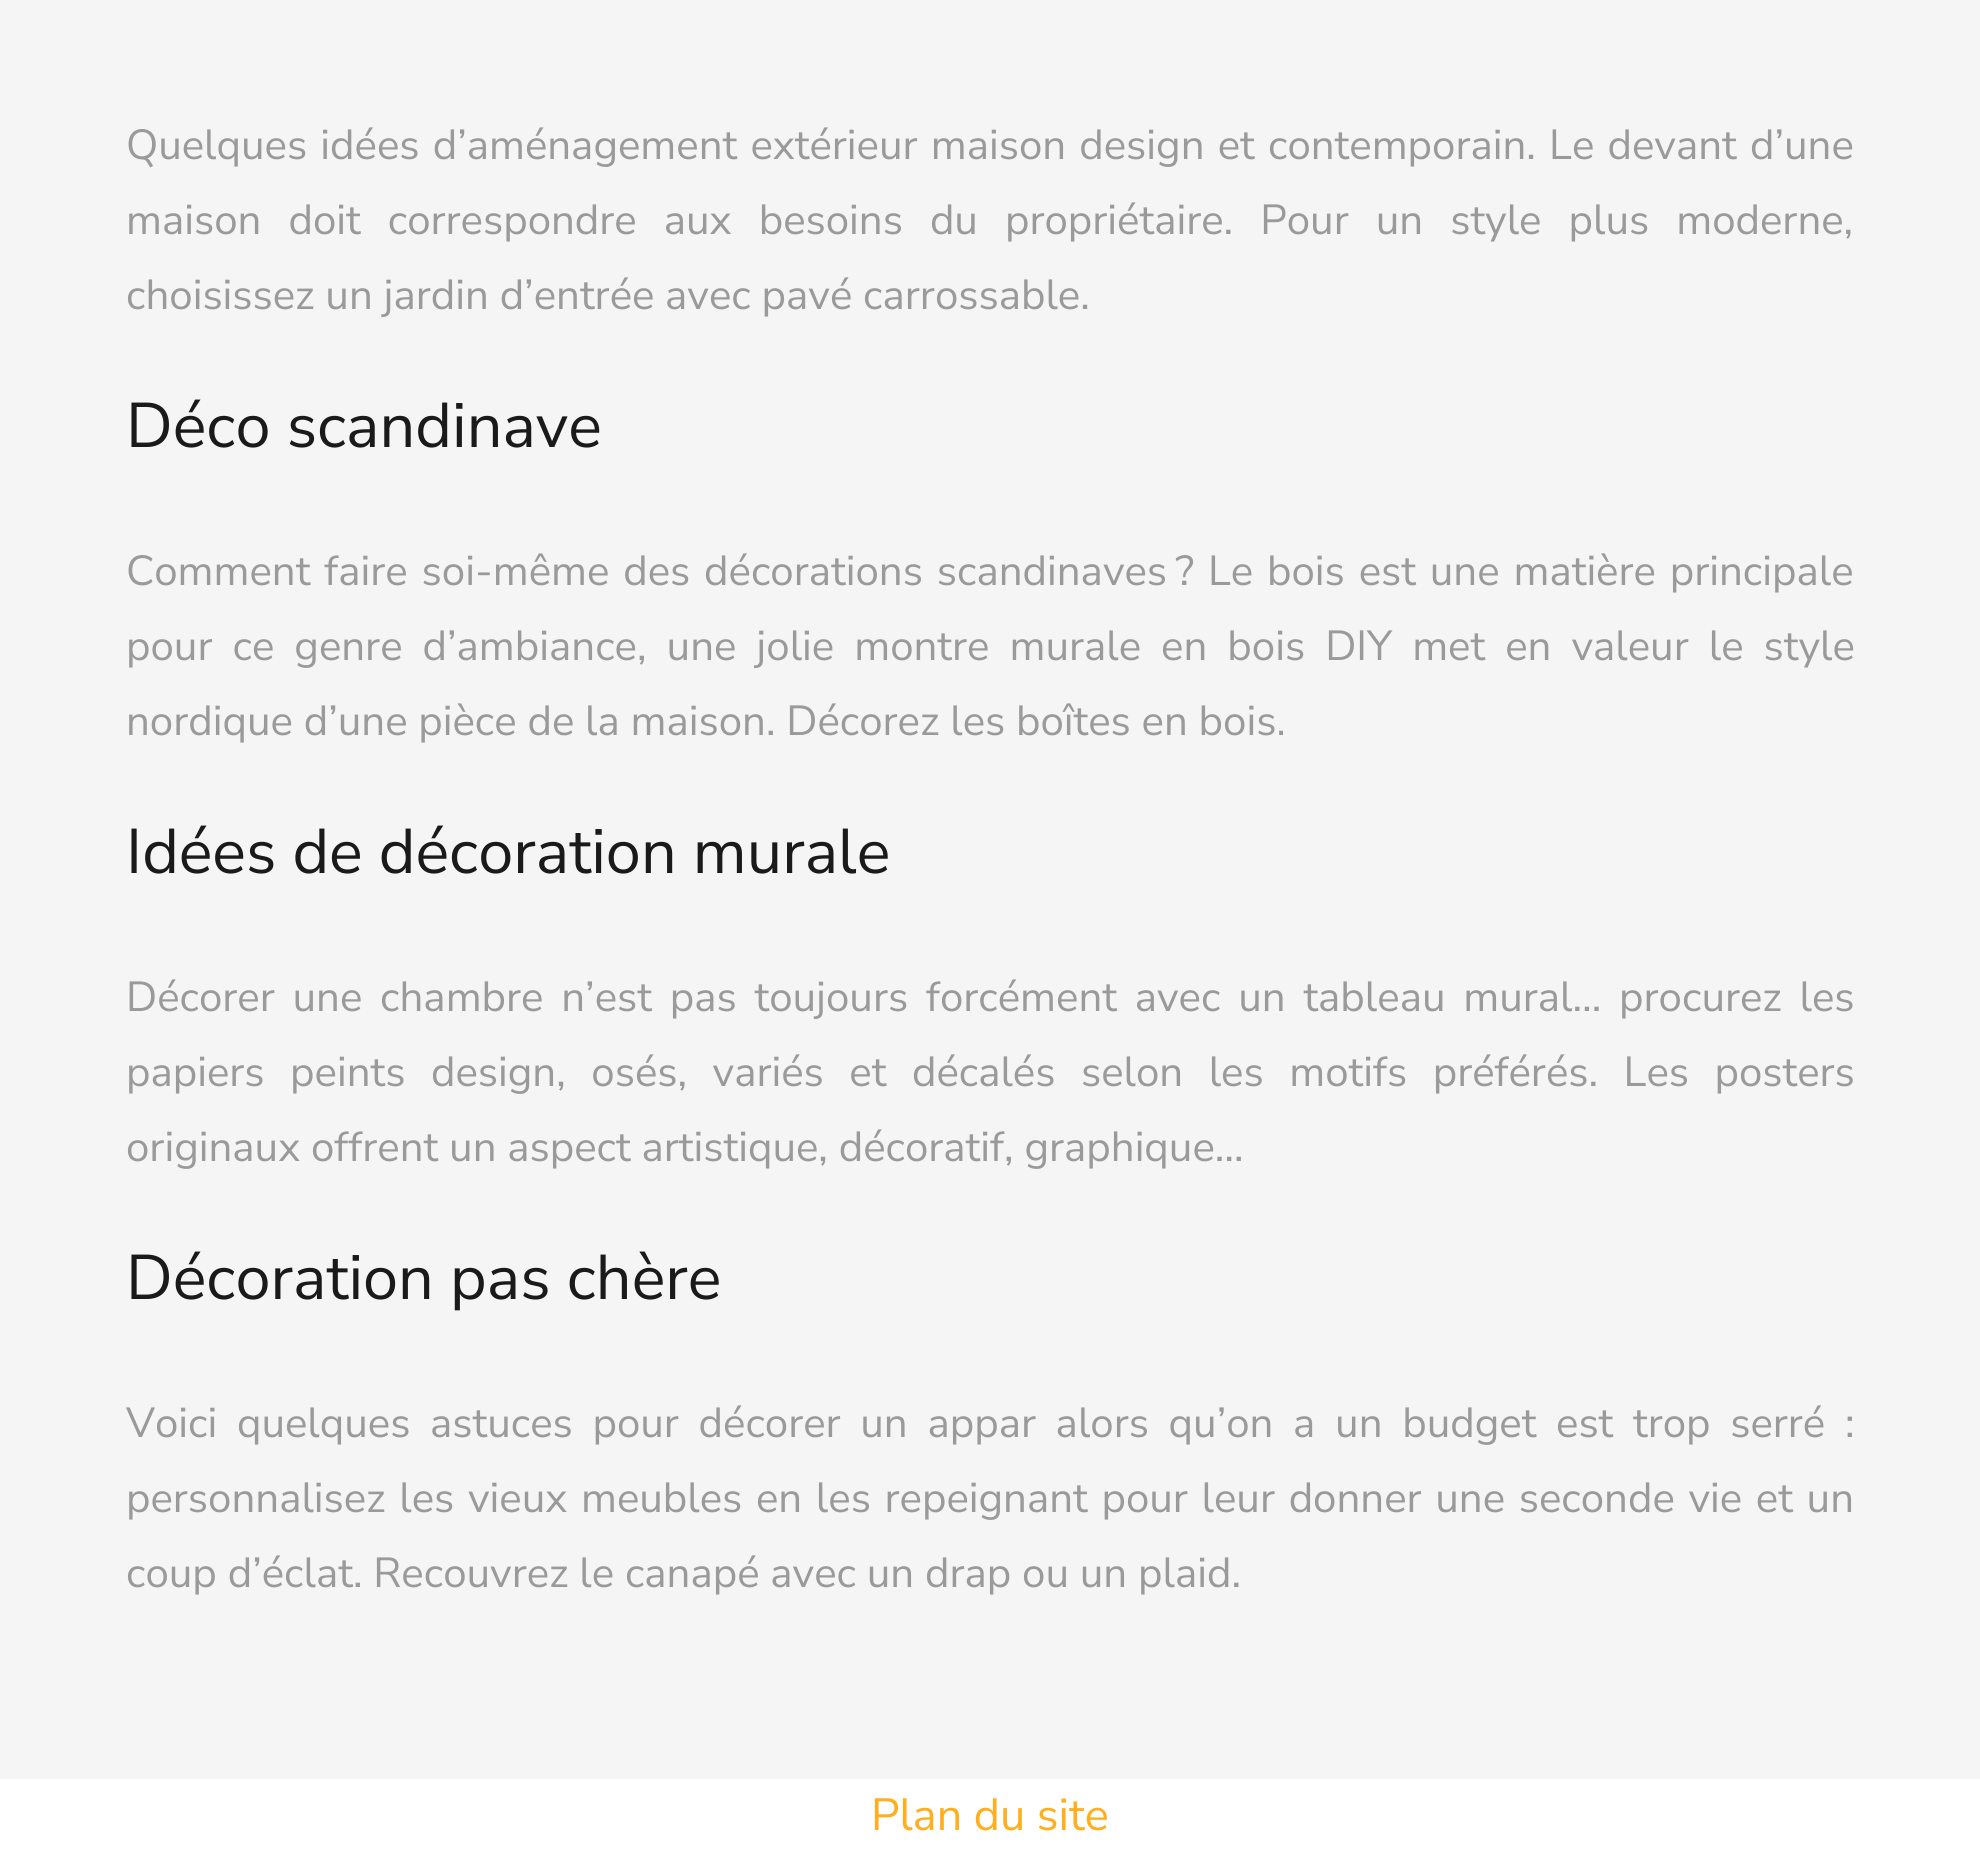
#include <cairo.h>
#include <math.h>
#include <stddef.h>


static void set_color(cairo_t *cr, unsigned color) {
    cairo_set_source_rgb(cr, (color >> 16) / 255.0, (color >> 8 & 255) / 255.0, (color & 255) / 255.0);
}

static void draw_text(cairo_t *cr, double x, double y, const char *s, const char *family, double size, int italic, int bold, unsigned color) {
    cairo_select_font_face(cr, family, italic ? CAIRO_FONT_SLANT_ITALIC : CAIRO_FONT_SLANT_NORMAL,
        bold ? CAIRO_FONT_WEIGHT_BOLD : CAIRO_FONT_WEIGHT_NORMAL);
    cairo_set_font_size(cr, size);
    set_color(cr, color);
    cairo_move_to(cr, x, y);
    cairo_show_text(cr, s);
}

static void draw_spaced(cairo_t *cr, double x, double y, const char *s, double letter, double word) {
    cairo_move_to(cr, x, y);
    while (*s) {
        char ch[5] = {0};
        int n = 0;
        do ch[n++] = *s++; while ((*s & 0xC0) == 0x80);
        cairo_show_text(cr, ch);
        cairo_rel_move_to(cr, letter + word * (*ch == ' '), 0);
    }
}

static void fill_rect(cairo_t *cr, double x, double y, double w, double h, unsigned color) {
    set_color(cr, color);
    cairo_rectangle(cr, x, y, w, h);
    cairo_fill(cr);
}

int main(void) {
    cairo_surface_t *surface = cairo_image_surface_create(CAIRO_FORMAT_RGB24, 1980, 1853);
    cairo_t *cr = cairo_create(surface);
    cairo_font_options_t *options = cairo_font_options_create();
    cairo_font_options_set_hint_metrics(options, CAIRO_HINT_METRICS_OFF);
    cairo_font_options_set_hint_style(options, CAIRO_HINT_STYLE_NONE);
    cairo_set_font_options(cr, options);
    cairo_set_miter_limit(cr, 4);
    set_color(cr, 0xFFFFFF);
    cairo_paint(cr);
    fill_rect(cr, 0, 0, 1980, 1779, 0xF5F5F5);
    cairo_select_font_face(cr, "Nunito Sans", CAIRO_FONT_SLANT_NORMAL, CAIRO_FONT_WEIGHT_NORMAL);
    cairo_set_font_size(cr, 42);
    set_color(cr, 0x9A9A9A);
    draw_spaced(cr, 126, 159, "Quelques idées d’aménagement extérieur maison design et contemporain. Le devant d’une", 0, 2.4);
    draw_spaced(cr, 126, 234, "maison doit correspondre aux besoins du propriétaire. Pour un style plus moderne,", 0, 16.25);
    draw_text(cr, 126, 309, "choisissez un jardin d’entrée avec pavé carrossable.", "Nunito Sans", 42, 0, 0, 0x9A9A9A);
    draw_text(cr, 126, 447, "Déco scandinave", "Nunito Sans", 63, 0, 0, 0x1A1A1A);
    cairo_set_font_size(cr, 42);
    set_color(cr, 0x9A9A9A);
    draw_spaced(cr, 126, 585, "Comment faire soi-même des décorations scandinaves ? Le bois est une matière principale", 0, 3.1);
    draw_spaced(cr, 126, 660, "pour ce genre d’ambiance, une jolie montre murale en bois DIY met en valeur le style", 0, 9.25);
    draw_text(cr, 126, 735, "nordique d’une pièce de la maison. Décorez les boîtes en bois.", "Nunito Sans", 42, 0, 0, 0x9A9A9A);
    draw_text(cr, 126, 873, "Idées de décoration murale", "Nunito Sans", 63, 0, 0, 0x1A1A1A);
    cairo_set_font_size(cr, 42);
    set_color(cr, 0x9A9A9A);
    draw_spaced(cr, 126, 1011, "Décorer une chambre n’est pas toujours forcément avec un tableau mural… procurez les", 0, 7);
    draw_spaced(cr, 126, 1086, "papiers peints design, osés, variés et décalés selon les motifs préférés. Les posters", 0, 14.75);
    draw_text(cr, 126, 1161, "originaux offrent un aspect artistique, décoratif, graphique…", "Nunito Sans", 42, 0, 0, 0x9A9A9A);
    draw_text(cr, 126, 1299, "Décoration pas chère", "Nunito Sans", 63, 0, 0, 0x1A1A1A);
    cairo_set_font_size(cr, 42);
    set_color(cr, 0x9A9A9A);
    draw_spaced(cr, 126, 1437, "Voici quelques astuces pour décorer un appar alors qu’on a un budget est trop serré :", 0, 8.9);
    draw_spaced(cr, 126, 1512, "personnalisez les vieux meubles en les repeignant pour leur donner une seconde vie et un", 0, 2.9);
    draw_text(cr, 126, 1587, "coup d’éclat. Recouvrez le canapé avec un drap ou un plaid.", "Nunito Sans", 42, 0, 0, 0x9A9A9A);
    draw_text(cr, 871, 1830, "Plan du site", "Nunito Sans", 45, 0, 0, 0xFFAF1E);
    cairo_surface_write_to_png(surface, "output.png");
    cairo_font_options_destroy(options);
    cairo_destroy(cr);
    cairo_surface_destroy(surface);
    return 0;
}
